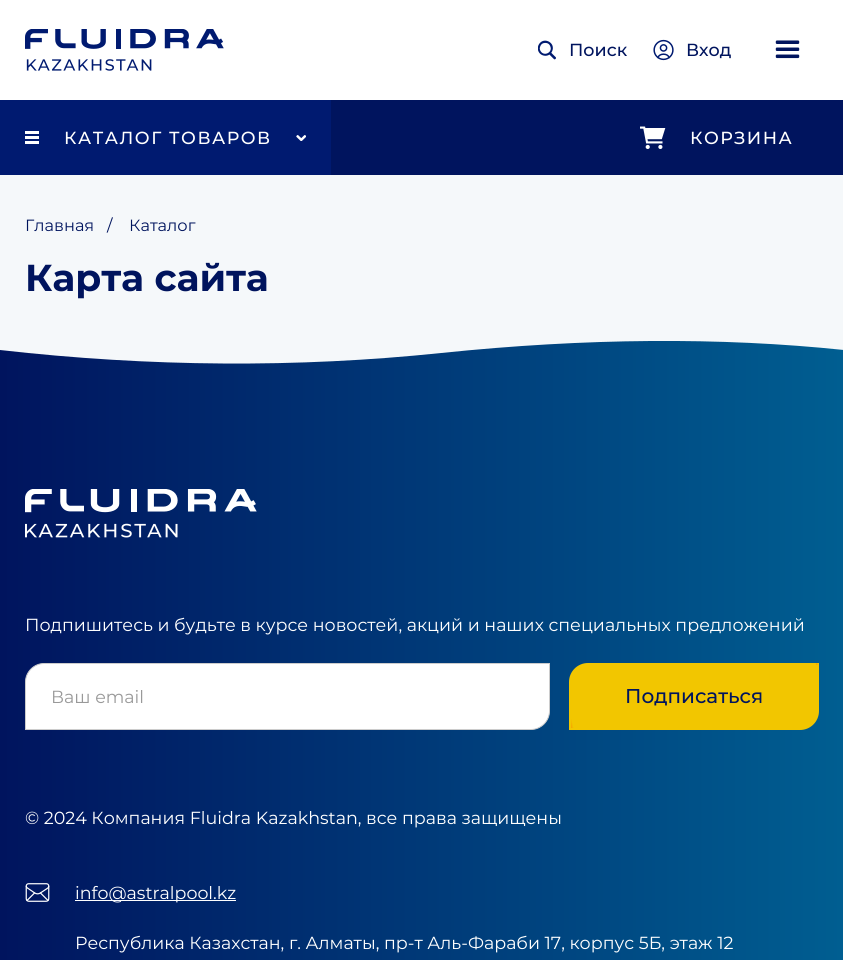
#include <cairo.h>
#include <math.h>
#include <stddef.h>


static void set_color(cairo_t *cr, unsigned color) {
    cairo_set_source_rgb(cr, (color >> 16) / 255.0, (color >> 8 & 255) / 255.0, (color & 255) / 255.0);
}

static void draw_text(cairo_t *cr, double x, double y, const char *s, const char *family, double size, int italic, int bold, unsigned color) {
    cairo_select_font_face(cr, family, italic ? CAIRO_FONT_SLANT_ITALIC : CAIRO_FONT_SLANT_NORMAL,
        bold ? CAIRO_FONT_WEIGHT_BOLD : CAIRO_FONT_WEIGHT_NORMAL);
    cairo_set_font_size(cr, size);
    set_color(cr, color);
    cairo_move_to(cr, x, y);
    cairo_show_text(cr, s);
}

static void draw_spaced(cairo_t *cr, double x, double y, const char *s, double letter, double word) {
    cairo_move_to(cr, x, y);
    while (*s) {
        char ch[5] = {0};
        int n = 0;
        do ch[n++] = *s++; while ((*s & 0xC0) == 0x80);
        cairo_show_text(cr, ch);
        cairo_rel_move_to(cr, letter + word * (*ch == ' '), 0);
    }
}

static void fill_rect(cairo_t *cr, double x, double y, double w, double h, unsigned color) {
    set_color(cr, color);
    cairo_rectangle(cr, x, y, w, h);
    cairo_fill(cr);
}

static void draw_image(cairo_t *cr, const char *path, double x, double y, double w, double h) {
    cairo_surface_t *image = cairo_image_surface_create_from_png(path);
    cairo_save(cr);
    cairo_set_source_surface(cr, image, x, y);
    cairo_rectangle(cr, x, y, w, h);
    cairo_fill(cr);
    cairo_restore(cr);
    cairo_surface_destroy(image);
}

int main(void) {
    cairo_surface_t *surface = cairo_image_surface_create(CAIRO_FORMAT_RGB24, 843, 960);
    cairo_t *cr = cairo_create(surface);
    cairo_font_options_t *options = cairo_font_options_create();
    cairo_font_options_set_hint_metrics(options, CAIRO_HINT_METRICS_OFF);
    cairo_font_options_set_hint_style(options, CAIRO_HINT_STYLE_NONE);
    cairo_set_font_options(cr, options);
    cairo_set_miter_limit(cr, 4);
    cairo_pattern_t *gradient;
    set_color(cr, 0xFFFFFF);
    cairo_paint(cr);
    draw_image(cr, "assets/img1.png", 25, 29, 199, 42);
    draw_image(cr, "assets/img2.png", 538, 40, 18, 20);
    draw_text(cr, 569, 56, "Поиск", "Montserrat Medium", 17.5, 0, 0, 0x00145E);
    draw_image(cr, "assets/img3.png", 653, 39, 21, 22);
    draw_text(cr, 686, 56, "Вход", "Montserrat Medium", 17.5, 0, 0, 0x00145E);
    draw_image(cr, "assets/img4.png", 775, 40, 25, 19);
    fill_rect(cr, 331, 100, 512, 75, 0x00145E);
    fill_rect(cr, 0, 100, 331, 75, 0x001A70);
    fill_rect(cr, 25, 131, 14, 3, 0xFFFFFF);
    fill_rect(cr, 25, 141, 14, 3, 0xFFFFFF);
    fill_rect(cr, 25, 136, 14, 3, 0xFFFFFF);
    draw_spaced(cr, 64, 144, "КАТАЛОГ ТОВАРОВ", 1.5, 0);
    draw_image(cr, "assets/img5.png", 296, 135, 10, 6);
    draw_image(cr, "assets/img6.png", 640, 126, 26, 23);
    draw_spaced(cr, 690, 144, "КОРЗИНА", 1.5, 0);
    fill_rect(cr, 0, 175, 843, 164, 0xF5F8FA);
    draw_text(cr, 25, 231, "Главная", "Montserrat", 16.25, 0, 0, 0x00145E);
    draw_text(cr, 107, 231, "/", "Montserrat", 16.25, 0, 0, 0x00145E);
    draw_text(cr, 129, 231, "Каталог", "Montserrat", 16.25, 0, 0, 0x00145E);
    draw_text(cr, 25, 291, "Карта сайта", "Montserrat", 37.5, 0, 1, 0x00145E);
    gradient = cairo_pattern_create_linear(0, 724, 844, 724);
    cairo_pattern_add_color_stop_rgba(gradient, 0, 0, 0.078, 0.369, 1);
    cairo_pattern_add_color_stop_rgba(gradient, 1, 0, 0.369, 0.569, 1);
    cairo_set_source(cr, gradient);
    cairo_pattern_destroy(gradient);
    cairo_rectangle(cr, 0, 341, 843, 619);
    cairo_fill(cr);
    set_color(cr, 0xF5F8FA);
    cairo_new_path(cr);
    cairo_move_to(cr, 0, 350);
    cairo_line_to(cr, 0, 339);
    cairo_line_to(cr, 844, 339);
    cairo_line_to(cr, 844, 350);
    cairo_curve_to(cr, 720, 337, 586, 338, 441, 353);
    cairo_curve_to(cr, 297, 368, 150, 367, 0, 350);
    cairo_close_path(cr);
    cairo_fill(cr);
    draw_image(cr, "assets/img7.png", 25, 489, 232, 49);
    draw_text(cr, 25, 631, "Подпишитесь и будьте в курсе новостей, акций и наших специальных предложений", "Montserrat", 17.5, 0, 0, 0xFFFFFF);
    cairo_new_path(cr);
    cairo_move_to(cr, 44, 663.5);
    cairo_line_to(cr, 549.5, 663.5);
    cairo_line_to(cr, 549.5, 711);
    cairo_curve_to(cr, 549.5, 721, 541, 729.5, 531, 729.5);
    cairo_line_to(cr, 25.5, 729.5);
    cairo_line_to(cr, 25.5, 682);
    cairo_curve_to(cr, 25.5, 672, 34, 663.5, 44, 663.5);
    cairo_close_path(cr);
    cairo_fill_preserve(cr);
    set_color(cr, 0xCCCCCC);
    cairo_set_line_width(cr, 1);
    cairo_stroke(cr);
    draw_text(cr, 51, 703, "Ваш email", "Montserrat", 17.5, 0, 0, 0x999999);
    cairo_save(cr);
    cairo_new_path(cr);
    cairo_move_to(cr, 588, 663);
    cairo_line_to(cr, 819, 663);
    cairo_line_to(cr, 819, 711);
    cairo_curve_to(cr, 819, 721.5, 810.5, 730, 800, 730);
    cairo_line_to(cr, 569, 730);
    cairo_line_to(cr, 569, 682);
    cairo_curve_to(cr, 569, 671.5, 577.5, 663, 588, 663);
    cairo_close_path(cr);
    cairo_clip(cr);
    gradient = cairo_pattern_create_linear(816, 603, 571, 664);
    cairo_pattern_add_color_stop_rgba(gradient, 0.99, 0.949, 0.776, 0, 1);
    cairo_pattern_add_color_stop_rgba(gradient, 1, 0.969, 0.647, 0, 1);
    cairo_set_source(cr, gradient);
    cairo_pattern_destroy(gradient);
    cairo_rectangle(cr, 571, 663, 245, 2);
    cairo_fill(cr);
    cairo_restore(cr);
    gradient = cairo_pattern_create_linear(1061, 603, 816, 664);
    cairo_pattern_add_color_stop_rgba(gradient, 0.99, 0.949, 0.776, 0, 1);
    cairo_pattern_add_color_stop_rgba(gradient, 1, 0.969, 0.647, 0, 1);
    cairo_set_source(cr, gradient);
    cairo_pattern_destroy(gradient);
    cairo_rectangle(cr, 816, 663, 3, 2);
    cairo_fill(cr);
    cairo_save(cr);
    cairo_new_path(cr);
    cairo_move_to(cr, 588, 663);
    cairo_line_to(cr, 819, 663);
    cairo_line_to(cr, 819, 711);
    cairo_curve_to(cr, 819, 721.5, 810.5, 730, 800, 730);
    cairo_line_to(cr, 569, 730);
    cairo_line_to(cr, 569, 682);
    cairo_curve_to(cr, 569, 671.5, 577.5, 663, 588, 663);
    cairo_close_path(cr);
    cairo_clip(cr);
    gradient = cairo_pattern_create_linear(571, 666, 326, 727);
    cairo_pattern_add_color_stop_rgba(gradient, 0.99, 0.949, 0.776, 0, 1);
    cairo_pattern_add_color_stop_rgba(gradient, 1, 0.969, 0.647, 0, 1);
    cairo_set_source(cr, gradient);
    cairo_pattern_destroy(gradient);
    cairo_rectangle(cr, 569, 665, 2, 63);
    cairo_fill(cr);
    gradient = cairo_pattern_create_linear(816, 666, 571, 727);
    cairo_pattern_add_color_stop_rgba(gradient, 0.99, 0.949, 0.776, 0, 1);
    cairo_pattern_add_color_stop_rgba(gradient, 1, 0.969, 0.647, 0, 1);
    cairo_set_source(cr, gradient);
    cairo_pattern_destroy(gradient);
    cairo_rectangle(cr, 571, 665, 245, 63);
    cairo_fill(cr);
    gradient = cairo_pattern_create_linear(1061, 666, 816, 727);
    cairo_pattern_add_color_stop_rgba(gradient, 0.99, 0.949, 0.776, 0, 1);
    cairo_pattern_add_color_stop_rgba(gradient, 1, 0.969, 0.647, 0, 1);
    cairo_set_source(cr, gradient);
    cairo_pattern_destroy(gradient);
    cairo_rectangle(cr, 816, 665, 3, 63);
    cairo_fill(cr);
    cairo_restore(cr);
    gradient = cairo_pattern_create_linear(571, 728, 326, 789);
    cairo_pattern_add_color_stop_rgba(gradient, 0.99, 0.949, 0.776, 0, 1);
    cairo_pattern_add_color_stop_rgba(gradient, 1, 0.969, 0.647, 0, 1);
    cairo_set_source(cr, gradient);
    cairo_pattern_destroy(gradient);
    cairo_rectangle(cr, 569, 728, 2, 2);
    cairo_fill(cr);
    cairo_save(cr);
    cairo_new_path(cr);
    cairo_move_to(cr, 588, 663);
    cairo_line_to(cr, 819, 663);
    cairo_line_to(cr, 819, 711);
    cairo_curve_to(cr, 819, 721.5, 810.5, 730, 800, 730);
    cairo_line_to(cr, 569, 730);
    cairo_line_to(cr, 569, 682);
    cairo_curve_to(cr, 569, 671.5, 577.5, 663, 588, 663);
    cairo_close_path(cr);
    cairo_clip(cr);
    gradient = cairo_pattern_create_linear(816, 728, 571, 789);
    cairo_pattern_add_color_stop_rgba(gradient, 0.99, 0.949, 0.776, 0, 1);
    cairo_pattern_add_color_stop_rgba(gradient, 1, 0.969, 0.647, 0, 1);
    cairo_set_source(cr, gradient);
    cairo_pattern_destroy(gradient);
    cairo_rectangle(cr, 571, 728, 245, 2);
    cairo_fill(cr);
    cairo_restore(cr);
    draw_text(cr, 625, 703, "Подписаться", "Montserrat Medium", 20, 0, 0, 0x00145E);
    draw_text(cr, 25, 824, "© 2024 Компания Fluidra Kazakhstan, все права защищены", "Montserrat", 17.5, 0, 0, 0xFFFFFF);
    draw_image(cr, "assets/img8.png", 25, 883, 25, 19);
    fill_rect(cr, 75, 900, 161, 1, 0xFFFFFF);
    draw_text(cr, 75, 899, "info@astralpool.kz", "Montserrat", 17.5, 0, 0, 0xFFFFFF);
    draw_text(cr, 75, 949, "Республика Казахстан, г. Алматы, пр-т Аль-Фараби 17, корпус 5Б, этаж 12", "Montserrat", 17.5, 0, 0, 0xFFFFFF);
    cairo_surface_write_to_png(surface, "output.png");
    cairo_font_options_destroy(options);
    cairo_destroy(cr);
    cairo_surface_destroy(surface);
    return 0;
}
